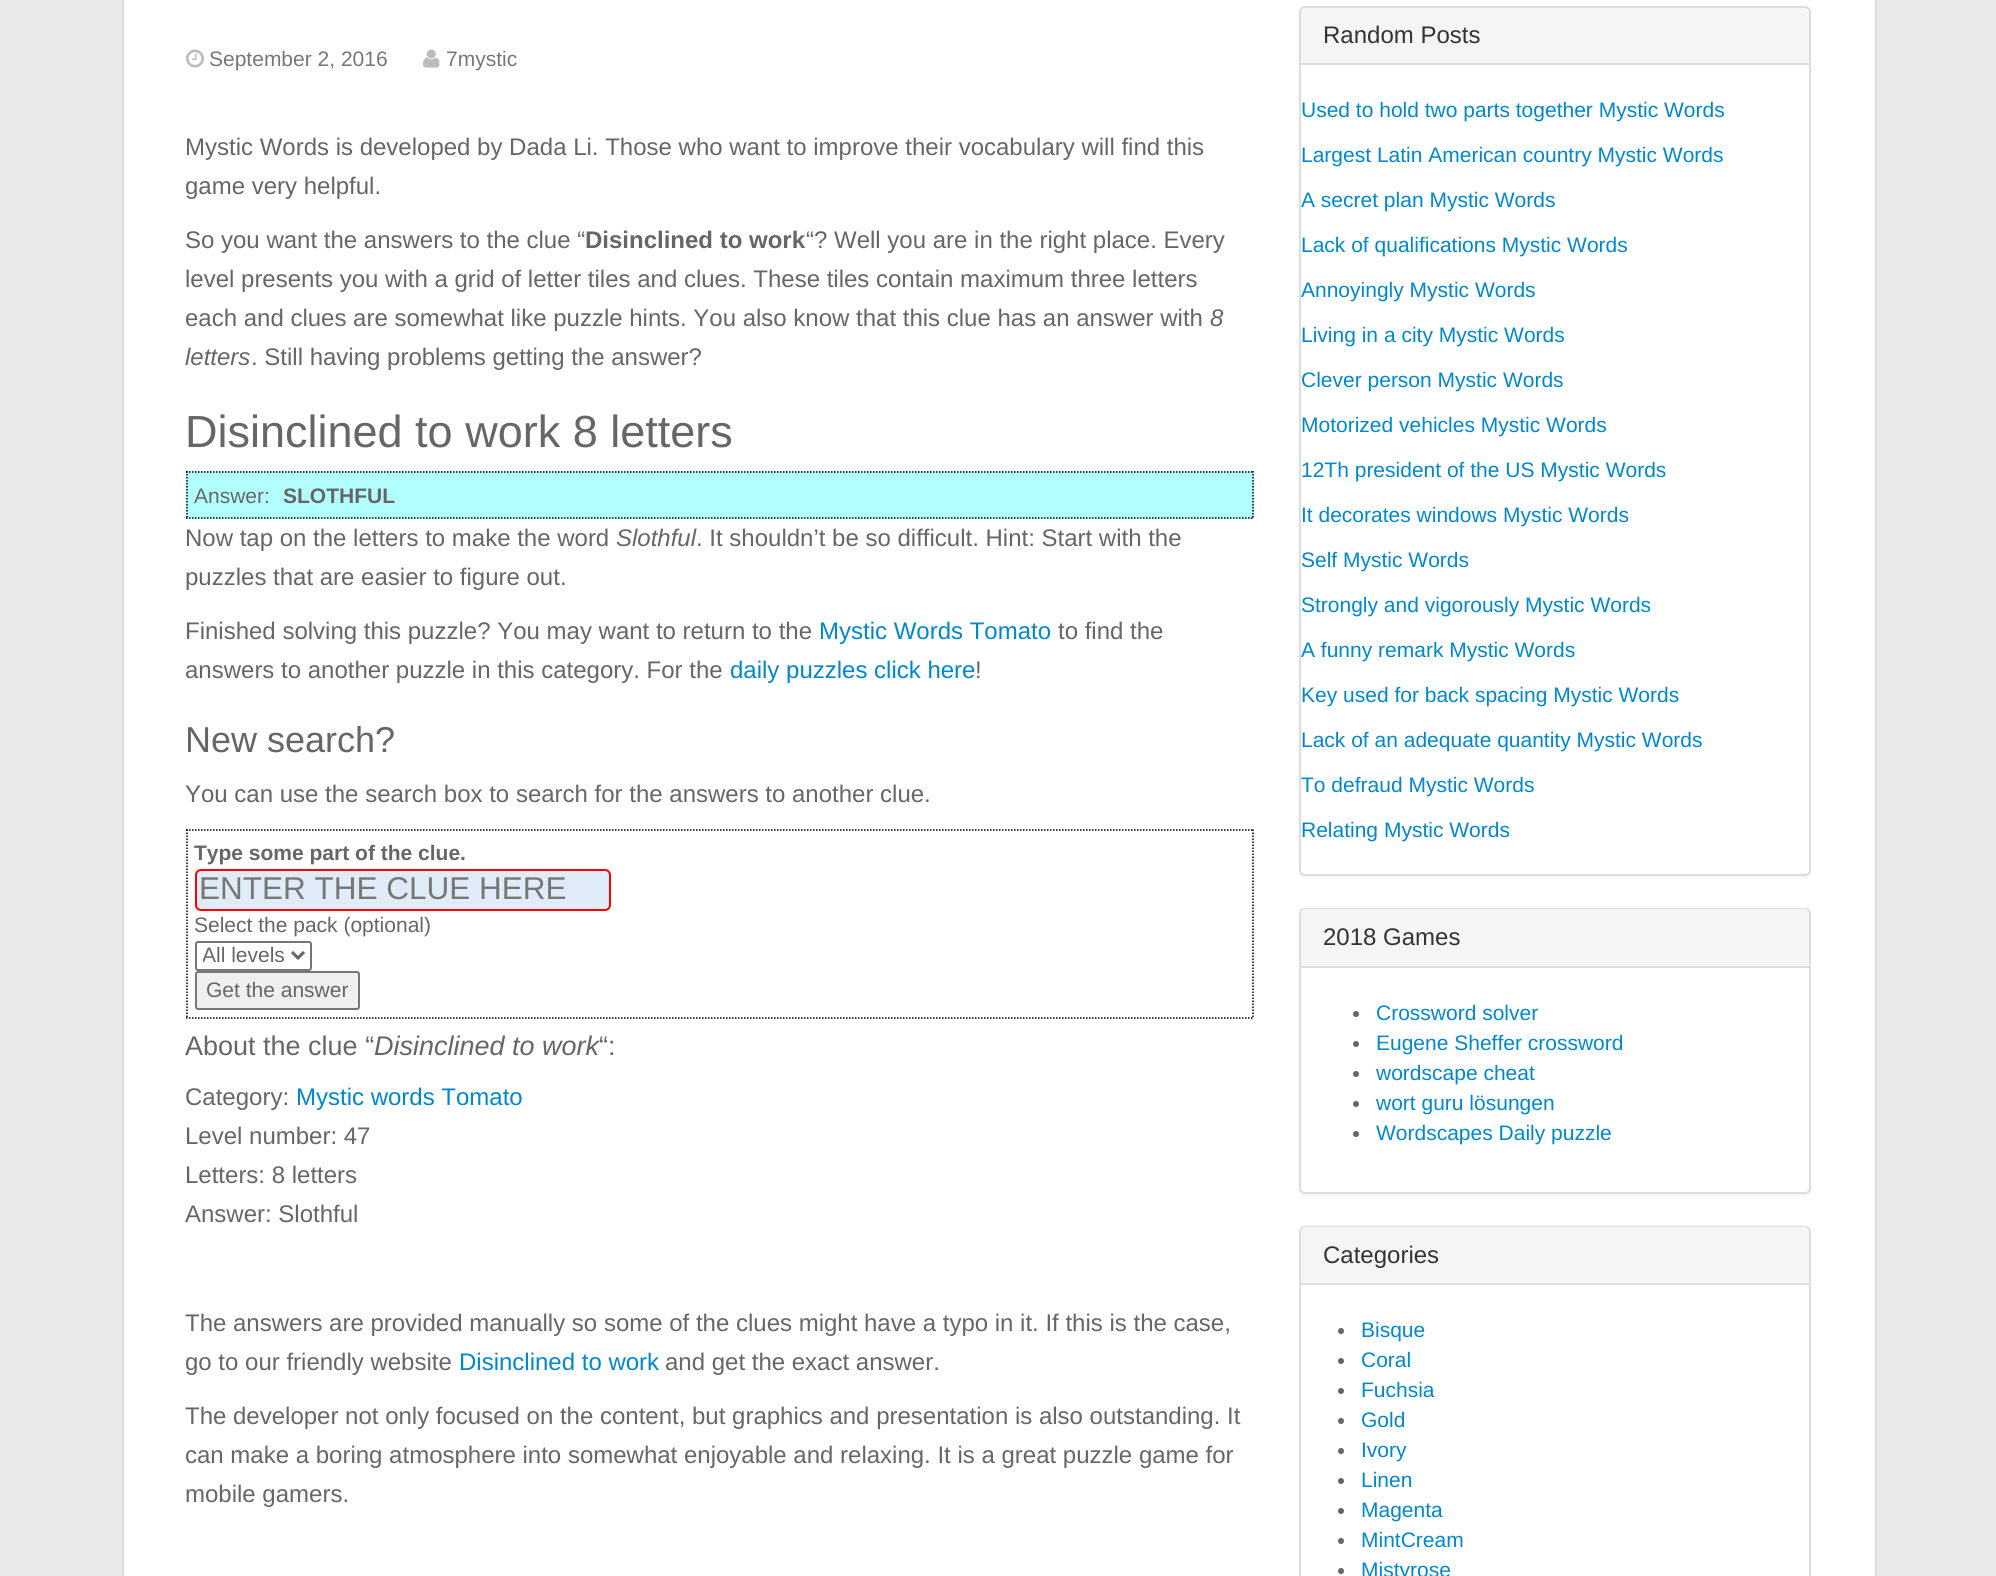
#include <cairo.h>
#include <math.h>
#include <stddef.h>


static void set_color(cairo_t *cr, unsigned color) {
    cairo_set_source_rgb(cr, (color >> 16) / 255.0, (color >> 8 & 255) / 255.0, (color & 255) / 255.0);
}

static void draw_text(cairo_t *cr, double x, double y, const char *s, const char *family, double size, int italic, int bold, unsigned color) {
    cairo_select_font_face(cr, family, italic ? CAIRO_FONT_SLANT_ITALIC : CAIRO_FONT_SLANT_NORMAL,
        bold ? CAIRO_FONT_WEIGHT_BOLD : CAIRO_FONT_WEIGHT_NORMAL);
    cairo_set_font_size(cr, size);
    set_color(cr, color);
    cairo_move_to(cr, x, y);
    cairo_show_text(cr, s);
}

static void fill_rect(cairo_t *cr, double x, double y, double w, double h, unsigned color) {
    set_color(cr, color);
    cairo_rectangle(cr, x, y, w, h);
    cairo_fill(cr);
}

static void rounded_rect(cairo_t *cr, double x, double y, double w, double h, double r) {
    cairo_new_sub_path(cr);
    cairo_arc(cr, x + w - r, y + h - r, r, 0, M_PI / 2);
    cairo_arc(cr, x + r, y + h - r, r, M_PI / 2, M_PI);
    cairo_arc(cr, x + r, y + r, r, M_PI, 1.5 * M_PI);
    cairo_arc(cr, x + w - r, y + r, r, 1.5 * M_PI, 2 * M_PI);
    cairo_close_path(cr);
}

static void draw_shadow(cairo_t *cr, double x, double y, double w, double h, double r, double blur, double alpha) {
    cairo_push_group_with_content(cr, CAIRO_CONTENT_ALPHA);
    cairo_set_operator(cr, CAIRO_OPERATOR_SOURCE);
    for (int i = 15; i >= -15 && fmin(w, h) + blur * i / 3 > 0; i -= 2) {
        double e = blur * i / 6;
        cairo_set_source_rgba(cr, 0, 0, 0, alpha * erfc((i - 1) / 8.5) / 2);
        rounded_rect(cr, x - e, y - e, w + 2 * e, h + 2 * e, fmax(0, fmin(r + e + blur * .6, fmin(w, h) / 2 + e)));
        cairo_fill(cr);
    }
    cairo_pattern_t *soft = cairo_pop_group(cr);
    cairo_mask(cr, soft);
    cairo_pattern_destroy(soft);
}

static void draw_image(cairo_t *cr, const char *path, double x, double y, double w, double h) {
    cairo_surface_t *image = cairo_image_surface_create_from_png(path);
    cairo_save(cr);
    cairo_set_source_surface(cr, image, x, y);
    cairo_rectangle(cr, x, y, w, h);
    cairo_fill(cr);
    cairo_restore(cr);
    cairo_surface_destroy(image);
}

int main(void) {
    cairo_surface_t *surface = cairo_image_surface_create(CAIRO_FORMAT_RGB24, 1996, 1576);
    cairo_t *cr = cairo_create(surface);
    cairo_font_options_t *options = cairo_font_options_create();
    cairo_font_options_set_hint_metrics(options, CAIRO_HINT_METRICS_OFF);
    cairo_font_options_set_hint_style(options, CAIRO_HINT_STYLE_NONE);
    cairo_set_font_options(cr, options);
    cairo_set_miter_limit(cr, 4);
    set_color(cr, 0xEAEAEA);
    cairo_paint(cr);
    set_color(cr, 0xFFFFFF);
    cairo_rectangle(cr, 123, -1, 1753, 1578);
    cairo_fill_preserve(cr);
    set_color(cr, 0xDDDDDD);
    cairo_stroke(cr);
    draw_image(cr, "assets/img1.png", 186, 49, 18, 19);
    draw_text(cr, 209, 66, "September 2, 2016", "Liberation Sans", 21, 0, 0, 0x777777);
    draw_image(cr, "assets/img2.png", 423, 49, 17, 19);
    draw_text(cr, 446, 66, "7mystic", "Liberation Sans", 21, 0, 0, 0x777777);
    draw_text(cr, 185, 155, "Mystic Words is developed by Dada Li. Those who want to improve their vocabulary will find this", "Liberation Sans", 24, 0, 0, 0x666666);
    draw_text(cr, 185, 194, "game very helpful.", "Liberation Sans", 24, 0, 0, 0x666666);
    draw_text(cr, 185, 248, "So you want the answers to the clue “", "Liberation Sans", 24, 0, 0, 0x666666);
    draw_text(cr, 585, 248, "Disinclined to work", "Liberation Sans", 24, 0, 1, 0x666666);
    draw_text(cr, 806, 248, "“? Well you are in the right place. Every", "Liberation Sans", 24, 0, 0, 0x666666);
    draw_text(cr, 185, 287, "level presents you with a grid of letter tiles and clues. These tiles contain maximum three letters", "Liberation Sans", 24, 0, 0, 0x666666);
    draw_text(cr, 185, 326, "each and clues are somewhat like puzzle hints. You also know that this clue has an answer with", "Liberation Sans", 24, 0, 0, 0x666666);
    draw_text(cr, 1210, 326, "8", "Liberation Sans", 24, 1, 0, 0x666666);
    draw_text(cr, 185, 365, "letters", "Liberation Sans", 24, 1, 0, 0x666666);
    draw_text(cr, 251, 365, ". Still having problems getting the answer?", "Liberation Sans", 24, 0, 0, 0x666666);
    draw_text(cr, 185, 447, "Disinclined to work 8 letters", "Liberation Sans", 45, 0, 0, 0x666666);
    fill_rect(cr, 186, 471, 1068, 48, 0xB3FFFF);
    cairo_new_path(cr);
    cairo_move_to(cr, 186, 472);
    cairo_line_to(cr, 1254, 472);
    set_color(cr, 0x000000);
    cairo_set_line_width(cr, 1.5);
    cairo_set_dash(cr, (double[]){1.5, 1.5}, 2, 0);
    cairo_stroke(cr);
    cairo_new_path(cr);
    cairo_move_to(cr, 1253, 471);
    cairo_line_to(cr, 1253, 519);
    cairo_stroke(cr);
    cairo_new_path(cr);
    cairo_move_to(cr, 186, 518);
    cairo_line_to(cr, 1254, 518);
    cairo_stroke(cr);
    cairo_new_path(cr);
    cairo_move_to(cr, 187, 471);
    cairo_line_to(cr, 187, 519);
    cairo_stroke(cr);
    draw_text(cr, 194, 503, "Answer:", "Liberation Sans", 21, 0, 0, 0x666666);
    draw_text(cr, 283, 503, "SLOTHFUL", "Liberation Sans", 21, 0, 1, 0x666666);
    draw_text(cr, 185, 546, "Now tap on the letters to make the word", "Liberation Sans", 24, 0, 0, 0x666666);
    draw_text(cr, 616, 546, "Slothful", "Liberation Sans", 24, 1, 0, 0x666666);
    draw_text(cr, 696, 546, ". It shouldn’t be so difficult. Hint: Start with the", "Liberation Sans", 24, 0, 0, 0x666666);
    draw_text(cr, 185, 585, "puzzles that are easier to figure out.", "Liberation Sans", 24, 0, 0, 0x666666);
    draw_text(cr, 185, 639, "Finished solving this puzzle? You may want to return to the", "Liberation Sans", 24, 0, 0, 0x666666);
    draw_text(cr, 819, 639, "Mystic Words Tomato", "Liberation Sans", 24, 0, 0, 0x0088CC);
    draw_text(cr, 1058, 639, "to find the", "Liberation Sans", 24, 0, 0, 0x666666);
    draw_text(cr, 185, 678, "answers to another puzzle in this category. For the", "Liberation Sans", 24, 0, 0, 0x666666);
    draw_text(cr, 730, 678, "daily puzzles click here", "Liberation Sans", 24, 0, 0, 0x0088CC);
    draw_text(cr, 975, 678, "!", "Liberation Sans", 24, 0, 0, 0x666666);
    draw_text(cr, 185, 752, "New search?", "Liberation Sans", 36, 0, 0, 0x666666);
    draw_text(cr, 185, 802, "You can use the search box to search for the answers to another clue.", "Liberation Sans", 24, 0, 0, 0x666666);
    cairo_new_path(cr);
    cairo_move_to(cr, 186, 830);
    cairo_line_to(cr, 1254, 830);
    set_color(cr, 0x000000);
    cairo_stroke(cr);
    cairo_new_path(cr);
    cairo_move_to(cr, 1253, 829.5);
    cairo_line_to(cr, 1253, 1018.5);
    cairo_stroke(cr);
    cairo_new_path(cr);
    cairo_move_to(cr, 186, 1018);
    cairo_line_to(cr, 1254, 1018);
    cairo_stroke(cr);
    cairo_new_path(cr);
    cairo_move_to(cr, 187, 829.5);
    cairo_line_to(cr, 187, 1018.5);
    cairo_stroke(cr);
    draw_text(cr, 194, 860, "Type some part of the clue.", "Liberation Sans", 21, 0, 1, 0x666666);
    set_color(cr, 0xE0ECF8);
    rounded_rect(cr, 196, 870, 414, 40, 5);
    cairo_fill_preserve(cr);
    set_color(cr, 0xFF0000);
    cairo_set_line_width(cr, 2);
    cairo_set_dash(cr, NULL, 0, 0);
    cairo_stroke(cr);
    draw_text(cr, 199, 899, "ENTER THE CLUE HERE", "Liberation Sans", 31.5, 0, 0, 0x777777);
    draw_text(cr, 194, 932, "Select the pack (optional)", "Liberation Sans", 21, 0, 0, 0x666666);
    rounded_rect(cr, 196, 942, 115, 28, 2);
    set_color(cr, 0x767676);
    cairo_stroke(cr);
    cairo_new_path(cr);
    cairo_move_to(cr, 292, 952);
    cairo_line_to(cr, 298, 958);
    cairo_line_to(cr, 304, 952);
    set_color(cr, 0x666666);
    cairo_set_line_width(cr, 3);
    cairo_stroke(cr);
    cairo_save(cr);
    cairo_rectangle(cr, 203, 942, 84, 27);
    cairo_clip(cr);
    draw_text(cr, 202, 962, "All levels", "Liberation Sans", 21, 0, 0, 0x666666);
    cairo_restore(cr);
    set_color(cr, 0xEFEFEF);
    rounded_rect(cr, 196, 972, 163, 37, 2);
    cairo_fill_preserve(cr);
    set_color(cr, 0x767676);
    cairo_set_line_width(cr, 2);
    cairo_stroke(cr);
    draw_text(cr, 206, 997, "Get the answer", "Liberation Sans", 21, 0, 0, 0x666666);
    draw_text(cr, 185, 1055, "About the clue “", "Liberation Sans", 27, 0, 0, 0x666666);
    draw_text(cr, 374, 1055, "Disinclined to work", "Liberation Sans", 27, 1, 0, 0x666666);
    draw_text(cr, 599, 1055, "“:", "Liberation Sans", 27, 0, 0, 0x666666);
    draw_text(cr, 185, 1105, "Category:", "Liberation Sans", 24, 0, 0, 0x666666);
    draw_text(cr, 296, 1105, "Mystic words Tomato", "Liberation Sans", 24, 0, 0, 0x0088CC);
    draw_text(cr, 185, 1144, "Level number: 47", "Liberation Sans", 24, 0, 0, 0x666666);
    draw_text(cr, 185, 1183, "Letters: 8 letters", "Liberation Sans", 24, 0, 0, 0x666666);
    draw_text(cr, 185, 1222, "Answer: Slothful", "Liberation Sans", 24, 0, 0, 0x666666);
    draw_text(cr, 185, 1331, "The answers are provided manually so some of the clues might have a typo in it. If this is the case,", "Liberation Sans", 24, 0, 0, 0x666666);
    draw_text(cr, 185, 1370, "go to our friendly website", "Liberation Sans", 24, 0, 0, 0x666666);
    draw_text(cr, 459, 1370, "Disinclined to work", "Liberation Sans", 24, 0, 0, 0x0088CC);
    draw_text(cr, 665, 1370, "and get the exact answer.", "Liberation Sans", 24, 0, 0, 0x666666);
    draw_text(cr, 185, 1424, "The developer not only focused on the content, but graphics and presentation is also outstanding. It", "Liberation Sans", 24, 0, 0, 0x666666);
    draw_text(cr, 185, 1463, "can make a boring atmosphere into somewhat enjoyable and relaxing. It is a great puzzle game for", "Liberation Sans", 24, 0, 0, 0x666666);
    draw_text(cr, 185, 1502, "mobile gamers.", "Liberation Sans", 24, 0, 0, 0x666666);
    set_color(cr, 0x000000);
    draw_shadow(cr, 1299, 8, 512, 870, 6, 1, 0.05);
    set_color(cr, 0xFFFFFF);
    rounded_rect(cr, 1300, 7, 510, 868, 5);
    cairo_fill_preserve(cr);
    set_color(cr, 0xDDDDDD);
    cairo_stroke(cr);
    set_color(cr, 0xF5F5F5);
    cairo_new_path(cr);
    cairo_move_to(cr, 1306, 8);
    cairo_line_to(cr, 1804, 8);
    cairo_curve_to(cr, 1807, 8, 1809, 10, 1809, 13);
    cairo_line_to(cr, 1809, 65);
    cairo_line_to(cr, 1301, 65);
    cairo_line_to(cr, 1301, 13);
    cairo_curve_to(cr, 1301, 10, 1303, 8, 1306, 8);
    cairo_close_path(cr);
    cairo_fill(cr);
    fill_rect(cr, 1301, 63, 508, 2, 0xDDDDDD);
    draw_text(cr, 1323, 43, "Random Posts", "Liberation Sans", 24, 0, 0, 0x333333);
    draw_text(cr, 1301, 117, "Used to hold two parts together Mystic Words", "Liberation Sans", 21, 0, 0, 0x0088CC);
    draw_text(cr, 1301, 162, "Largest Latin American country Mystic Words", "Liberation Sans", 21, 0, 0, 0x0088CC);
    draw_text(cr, 1301, 207, "A secret plan Mystic Words", "Liberation Sans", 21, 0, 0, 0x0088CC);
    draw_text(cr, 1301, 252, "Lack of qualifications Mystic Words", "Liberation Sans", 21, 0, 0, 0x0088CC);
    draw_text(cr, 1301, 297, "Annoyingly Mystic Words", "Liberation Sans", 21, 0, 0, 0x0088CC);
    draw_text(cr, 1301, 342, "Living in a city Mystic Words", "Liberation Sans", 21, 0, 0, 0x0088CC);
    draw_text(cr, 1301, 387, "Clever person Mystic Words", "Liberation Sans", 21, 0, 0, 0x0088CC);
    draw_text(cr, 1301, 432, "Motorized vehicles Mystic Words", "Liberation Sans", 21, 0, 0, 0x0088CC);
    draw_text(cr, 1301, 477, "12Th president of the US Mystic Words", "Liberation Sans", 21, 0, 0, 0x0088CC);
    draw_text(cr, 1301, 522, "It decorates windows Mystic Words", "Liberation Sans", 21, 0, 0, 0x0088CC);
    draw_text(cr, 1301, 567, "Self Mystic Words", "Liberation Sans", 21, 0, 0, 0x0088CC);
    draw_text(cr, 1301, 612, "Strongly and vigorously Mystic Words", "Liberation Sans", 21, 0, 0, 0x0088CC);
    draw_text(cr, 1301, 657, "A funny remark Mystic Words", "Liberation Sans", 21, 0, 0, 0x0088CC);
    draw_text(cr, 1301, 702, "Key used for back spacing Mystic Words", "Liberation Sans", 21, 0, 0, 0x0088CC);
    draw_text(cr, 1301, 747, "Lack of an adequate quantity Mystic Words", "Liberation Sans", 21, 0, 0, 0x0088CC);
    draw_text(cr, 1301, 792, "To defraud Mystic Words", "Liberation Sans", 21, 0, 0, 0x0088CC);
    draw_text(cr, 1301, 837, "Relating Mystic Words", "Liberation Sans", 21, 0, 0, 0x0088CC);
    set_color(cr, 0x000000);
    draw_shadow(cr, 1299, 909, 512, 287, 6, 1, 0.05);
    set_color(cr, 0xFFFFFF);
    rounded_rect(cr, 1300, 909, 510, 284, 5);
    cairo_fill_preserve(cr);
    set_color(cr, 0xDDDDDD);
    cairo_stroke(cr);
    set_color(cr, 0xF5F5F5);
    cairo_new_path(cr);
    cairo_move_to(cr, 1306, 909);
    cairo_line_to(cr, 1804, 909);
    cairo_curve_to(cr, 1807, 909, 1809, 911, 1809, 914);
    cairo_line_to(cr, 1809, 968);
    cairo_line_to(cr, 1301, 968);
    cairo_line_to(cr, 1301, 914);
    cairo_curve_to(cr, 1301, 911, 1303, 909, 1306, 909);
    cairo_close_path(cr);
    cairo_fill(cr);
    fill_rect(cr, 1301, 966, 508, 2, 0xDDDDDD);
    draw_text(cr, 1323, 945, "2018 Games", "Liberation Sans", 24, 0, 0, 0x333333);
    set_color(cr, 0x666666);
    cairo_new_path(cr);
    cairo_arc(cr, 1356, 1014, 3, 0, 2 * M_PI);
    cairo_fill(cr);
    draw_text(cr, 1376, 1020, "Crossword solver", "Liberation Sans", 21, 0, 0, 0x0088CC);
    set_color(cr, 0x666666);
    cairo_new_path(cr);
    cairo_arc(cr, 1356, 1044, 3, 0, 2 * M_PI);
    cairo_fill(cr);
    draw_text(cr, 1376, 1050, "Eugene Sheffer crossword", "Liberation Sans", 21, 0, 0, 0x0088CC);
    set_color(cr, 0x666666);
    cairo_new_path(cr);
    cairo_arc(cr, 1356, 1074, 3, 0, 2 * M_PI);
    cairo_fill(cr);
    draw_text(cr, 1376, 1080, "wordscape cheat", "Liberation Sans", 21, 0, 0, 0x0088CC);
    set_color(cr, 0x666666);
    cairo_new_path(cr);
    cairo_arc(cr, 1356, 1104, 3, 0, 2 * M_PI);
    cairo_fill(cr);
    draw_text(cr, 1376, 1110, "wort guru lösungen", "Liberation Sans", 21, 0, 0, 0x0088CC);
    set_color(cr, 0x666666);
    cairo_new_path(cr);
    cairo_arc(cr, 1356, 1134, 3, 0, 2 * M_PI);
    cairo_fill(cr);
    draw_text(cr, 1376, 1140, "Wordscapes Daily puzzle", "Liberation Sans", 21, 0, 0, 0x0088CC);
    rounded_rect(cr, 1300, 1227, 510, 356, 5);
    set_color(cr, 0xDDDDDD);
    cairo_stroke(cr);
    set_color(cr, 0xF5F5F5);
    cairo_new_path(cr);
    cairo_move_to(cr, 1306, 1227);
    cairo_line_to(cr, 1804, 1227);
    cairo_curve_to(cr, 1807, 1227, 1809, 1229, 1809, 1232);
    cairo_line_to(cr, 1809, 1284);
    cairo_line_to(cr, 1301, 1284);
    cairo_line_to(cr, 1301, 1232);
    cairo_curve_to(cr, 1301, 1229, 1303, 1227, 1306, 1227);
    cairo_close_path(cr);
    cairo_fill(cr);
    fill_rect(cr, 1301, 1283, 508, 2, 0xDDDDDD);
    draw_text(cr, 1323, 1263, "Categories", "Liberation Sans", 24, 0, 0, 0x333333);
    set_color(cr, 0x666666);
    cairo_new_path(cr);
    cairo_arc(cr, 1341, 1331, 3, 0, 2 * M_PI);
    cairo_fill(cr);
    draw_text(cr, 1361, 1337, "Bisque", "Liberation Sans", 21, 0, 0, 0x0088CC);
    set_color(cr, 0x666666);
    cairo_new_path(cr);
    cairo_arc(cr, 1341, 1361, 3, 0, 2 * M_PI);
    cairo_fill(cr);
    draw_text(cr, 1361, 1367, "Coral", "Liberation Sans", 21, 0, 0, 0x0088CC);
    set_color(cr, 0x666666);
    cairo_new_path(cr);
    cairo_arc(cr, 1341, 1391, 3, 0, 2 * M_PI);
    cairo_fill(cr);
    draw_text(cr, 1361, 1397, "Fuchsia", "Liberation Sans", 21, 0, 0, 0x0088CC);
    set_color(cr, 0x666666);
    cairo_new_path(cr);
    cairo_arc(cr, 1341, 1421, 3, 0, 2 * M_PI);
    cairo_fill(cr);
    draw_text(cr, 1361, 1427, "Gold", "Liberation Sans", 21, 0, 0, 0x0088CC);
    set_color(cr, 0x666666);
    cairo_new_path(cr);
    cairo_arc(cr, 1341, 1451, 3, 0, 2 * M_PI);
    cairo_fill(cr);
    draw_text(cr, 1361, 1457, "Ivory", "Liberation Sans", 21, 0, 0, 0x0088CC);
    set_color(cr, 0x666666);
    cairo_new_path(cr);
    cairo_arc(cr, 1341, 1481, 3, 0, 2 * M_PI);
    cairo_fill(cr);
    draw_text(cr, 1361, 1487, "Linen", "Liberation Sans", 21, 0, 0, 0x0088CC);
    set_color(cr, 0x666666);
    cairo_new_path(cr);
    cairo_arc(cr, 1341, 1511, 3, 0, 2 * M_PI);
    cairo_fill(cr);
    draw_text(cr, 1361, 1517, "Magenta", "Liberation Sans", 21, 0, 0, 0x0088CC);
    set_color(cr, 0x666666);
    cairo_new_path(cr);
    cairo_arc(cr, 1341, 1541, 3, 0, 2 * M_PI);
    cairo_fill(cr);
    draw_text(cr, 1361, 1547, "MintCream", "Liberation Sans", 21, 0, 0, 0x0088CC);
    set_color(cr, 0x666666);
    cairo_new_path(cr);
    cairo_arc(cr, 1341, 1571, 3, 0, 2 * M_PI);
    cairo_fill(cr);
    draw_text(cr, 1361, 1577, "Mistyrose", "Liberation Sans", 21, 0, 0, 0x0088CC);
    cairo_surface_write_to_png(surface, "output.png");
    cairo_font_options_destroy(options);
    cairo_destroy(cr);
    cairo_surface_destroy(surface);
    return 0;
}
